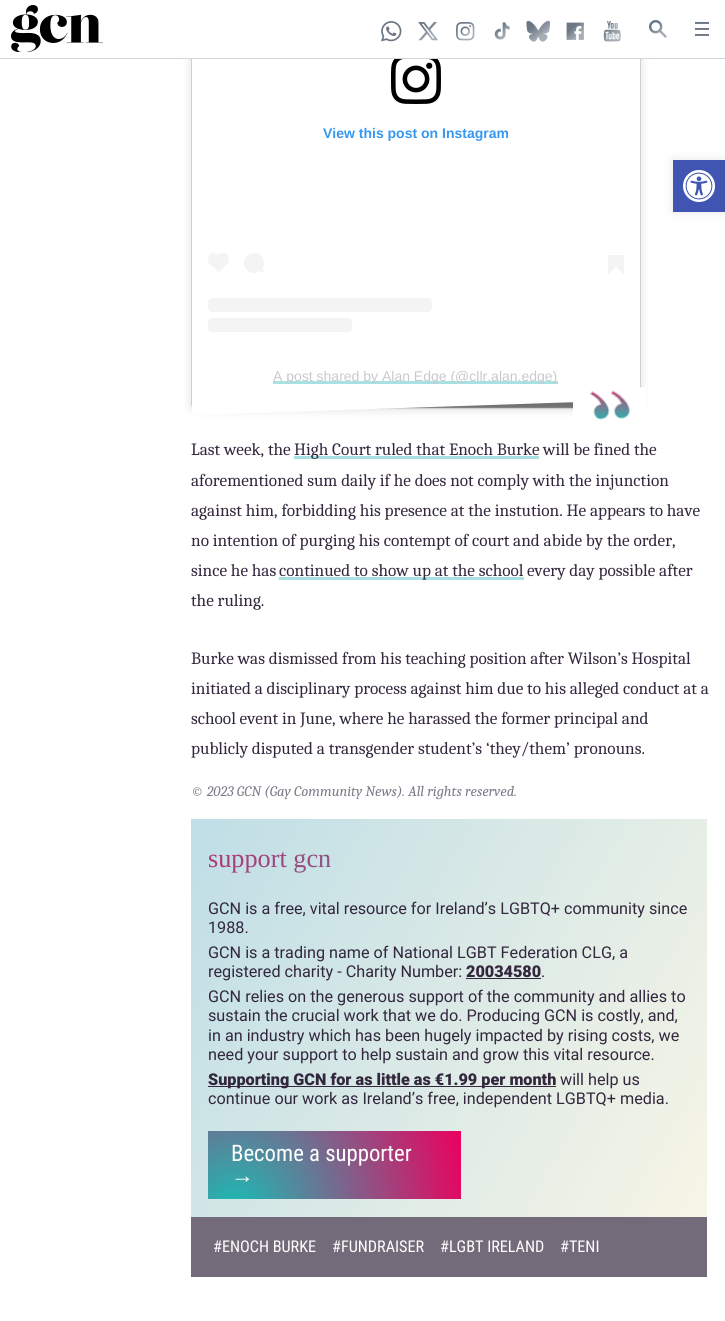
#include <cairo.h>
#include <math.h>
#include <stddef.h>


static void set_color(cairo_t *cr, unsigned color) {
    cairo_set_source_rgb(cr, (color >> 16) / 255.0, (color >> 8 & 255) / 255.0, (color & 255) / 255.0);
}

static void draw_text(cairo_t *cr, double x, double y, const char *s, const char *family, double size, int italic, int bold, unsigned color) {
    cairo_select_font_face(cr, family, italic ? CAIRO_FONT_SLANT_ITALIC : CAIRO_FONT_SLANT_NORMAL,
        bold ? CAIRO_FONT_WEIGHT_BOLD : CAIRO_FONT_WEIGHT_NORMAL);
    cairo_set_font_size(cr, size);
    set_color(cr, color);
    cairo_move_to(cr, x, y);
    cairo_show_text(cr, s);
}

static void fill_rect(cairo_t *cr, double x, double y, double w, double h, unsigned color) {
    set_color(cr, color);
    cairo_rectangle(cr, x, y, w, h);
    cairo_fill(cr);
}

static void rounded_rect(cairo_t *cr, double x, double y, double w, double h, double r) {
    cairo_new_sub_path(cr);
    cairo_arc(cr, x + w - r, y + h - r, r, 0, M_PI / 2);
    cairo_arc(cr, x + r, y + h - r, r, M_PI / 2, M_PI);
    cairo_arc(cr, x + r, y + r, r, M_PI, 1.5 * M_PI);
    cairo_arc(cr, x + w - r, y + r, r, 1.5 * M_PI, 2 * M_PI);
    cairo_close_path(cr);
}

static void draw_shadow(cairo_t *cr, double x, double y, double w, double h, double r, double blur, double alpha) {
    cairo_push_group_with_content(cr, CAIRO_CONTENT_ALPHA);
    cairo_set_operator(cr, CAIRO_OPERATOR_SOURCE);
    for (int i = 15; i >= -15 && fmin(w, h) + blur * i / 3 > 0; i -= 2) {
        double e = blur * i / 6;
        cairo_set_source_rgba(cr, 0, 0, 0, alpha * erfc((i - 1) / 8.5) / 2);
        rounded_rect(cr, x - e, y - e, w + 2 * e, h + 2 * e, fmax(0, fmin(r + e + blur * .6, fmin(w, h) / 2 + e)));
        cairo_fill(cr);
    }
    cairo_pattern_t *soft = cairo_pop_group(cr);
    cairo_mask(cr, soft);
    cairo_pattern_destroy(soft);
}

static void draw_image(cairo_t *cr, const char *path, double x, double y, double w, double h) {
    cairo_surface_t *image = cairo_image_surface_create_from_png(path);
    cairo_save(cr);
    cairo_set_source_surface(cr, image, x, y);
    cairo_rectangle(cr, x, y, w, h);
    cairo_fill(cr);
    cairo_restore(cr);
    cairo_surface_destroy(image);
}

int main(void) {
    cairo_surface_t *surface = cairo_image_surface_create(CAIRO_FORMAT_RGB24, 725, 1321);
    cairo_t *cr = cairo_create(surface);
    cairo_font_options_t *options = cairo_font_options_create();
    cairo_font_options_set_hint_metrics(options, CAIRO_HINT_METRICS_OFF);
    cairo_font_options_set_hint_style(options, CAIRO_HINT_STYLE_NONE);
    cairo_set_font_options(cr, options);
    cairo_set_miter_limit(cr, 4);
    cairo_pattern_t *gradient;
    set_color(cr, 0xFFFFFF);
    cairo_paint(cr);
    set_color(cr, 0x000000);
    draw_shadow(cr, 192, -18, 448, 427, 3, 5, 0.15);
    draw_shadow(cr, 192, -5, 448, 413, 3, 0.5, 0.5);
    set_color(cr, 0xFFFFFF);
    cairo_new_path(cr);
    cairo_move_to(cr, 195, -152);
    cairo_line_to(cr, 637, -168);
    cairo_curve_to(cr, 638, -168, 640, -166, 640, -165);
    cairo_line_to(cr, 640, 397);
    cairo_curve_to(cr, 640, 398, 638, 400, 637, 400);
    cairo_line_to(cr, 195, 415);
    cairo_curve_to(cr, 193, 415, 192, 414, 192, 412);
    cairo_line_to(cr, 192, -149);
    cairo_curve_to(cr, 192, -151, 193, -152, 195, -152);
    cairo_close_path(cr);
    cairo_fill(cr);
    fill_rect(cr, 185, 0, 462, 58, 0xFFFFFF);
    fill_rect(cr, 0, 58, 725, 1, 0xD3D6DA);
    draw_image(cr, "assets/img1.png", 11, 5, 92, 47);
    draw_image(cr, "assets/img2.png", 381, 21, 21, 21);
    draw_image(cr, "assets/img3.png", 418, 22, 20, 19);
    draw_image(cr, "assets/img4.png", 456, 22, 19, 19);
    draw_image(cr, "assets/img5.png", 494, 22, 16, 18);
    draw_image(cr, "assets/img6.png", 526, 20, 25, 22);
    draw_image(cr, "assets/img7.png", 566, 22, 18, 18);
    draw_image(cr, "assets/img8.png", 603, 21, 18, 21);
    draw_image(cr, "assets/img9.png", 649, 20, 18, 18);
    gradient = cairo_pattern_create_linear(695, 28, 695, 31);
    cairo_pattern_add_color_stop_rgba(gradient, 0.4, 0.42, 0.467, 0.518, 1);
    cairo_pattern_add_color_stop_rgba(gradient, 1, 0.651, 0.678, 0.71, 1);
    cairo_set_source(cr, gradient);
    cairo_pattern_destroy(gradient);
    cairo_rectangle(cr, 695, 28, 14, 2);
    cairo_fill(cr);
    gradient = cairo_pattern_create_linear(695, 22, 695, 25);
    cairo_pattern_add_color_stop_rgba(gradient, 0.4, 0.42, 0.467, 0.518, 1);
    cairo_pattern_add_color_stop_rgba(gradient, 1, 0.651, 0.678, 0.71, 1);
    cairo_set_source(cr, gradient);
    cairo_pattern_destroy(gradient);
    cairo_rectangle(cr, 695, 22, 14, 2);
    cairo_fill(cr);
    gradient = cairo_pattern_create_linear(695, 34, 695, 37);
    cairo_pattern_add_color_stop_rgba(gradient, 0.4, 0.42, 0.467, 0.518, 1);
    cairo_pattern_add_color_stop_rgba(gradient, 1, 0.651, 0.678, 0.71, 1);
    cairo_set_source(cr, gradient);
    cairo_pattern_destroy(gradient);
    cairo_rectangle(cr, 695, 34, 14, 2);
    cairo_fill(cr);
    draw_image(cr, "assets/img10.png", 391, 59, 50, 45);
    draw_text(cr, 323, 138, "View this post on Instagram", "Liberation Sans", 14, 0, 1, 0x3897F0);
    set_color(cr, 0xF4F4F4);
    rounded_rect(cr, 208, 253, 12, 13, 6);
    cairo_fill(cr);
    cairo_new_path(cr);
    cairo_move_to(cr, 210, 263.5);
    cairo_line_to(cr, 218.5, 254.5);
    cairo_line_to(cr, 227.5, 263.5);
    cairo_line_to(cr, 218.5, 272.5);
    cairo_close_path(cr);
    cairo_fill(cr);
    rounded_rect(cr, 217, 253, 12, 13, 6);
    cairo_fill(cr);
    cairo_arc(cr, 254, 263, 10, 0, 2 * M_PI);
    cairo_fill(cr);
    cairo_new_path(cr);
    cairo_move_to(cr, 259.5, 271);
    cairo_line_to(cr, 261.5, 267.5);
    cairo_line_to(cr, 265.5, 272.5);
    cairo_close_path(cr);
    cairo_fill(cr);
    fill_rect(cr, 608, 255, 16, 12, 0xF4F4F4);
    cairo_new_path(cr);
    cairo_move_to(cr, 608, 267);
    cairo_line_to(cr, 616, 267);
    cairo_line_to(cr, 608, 275);
    cairo_close_path(cr);
    cairo_fill(cr);
    cairo_new_path(cr);
    cairo_move_to(cr, 616, 267);
    cairo_line_to(cr, 624, 267);
    cairo_line_to(cr, 624, 275);
    cairo_close_path(cr);
    cairo_fill(cr);
    rounded_rect(cr, 208, 298, 224, 14, 4);
    cairo_fill(cr);
    rounded_rect(cr, 208, 318, 144, 14, 4);
    cairo_fill(cr);
    fill_rect(cr, 273, 381, 285, 3, 0xA7E1E1);
    draw_text(cr, 273, 381, "A post shared by Alan Edge (@cllr.alan.edge)", "Liberation Sans", 14, 0, 0, 0xC9C8CD);
    set_color(cr, 0xFFFFFF);
    cairo_new_path(cr);
    cairo_move_to(cr, 573, 390);
    cairo_line_to(cr, 646, 387);
    cairo_line_to(cr, 646, 430);
    cairo_line_to(cr, 573, 432);
    cairo_close_path(cr);
    cairo_fill(cr);
    draw_image(cr, "assets/img11.png", 590, 390, 40, 30);
    draw_text(cr, 191, 455, "Last week, the", "Caladea", 17.25, 0, 0, 0x33273E);
    fill_rect(cr, 294, 456, 245, 3, 0xA7E1E1);
    draw_text(cr, 294, 455, "High Court ruled that Enoch Burke", "Caladea", 17.25, 0, 0, 0x33273E);
    draw_text(cr, 543, 455, "will be fined the", "Caladea", 17.25, 0, 0, 0x33273E);
    draw_text(cr, 191, 486, "aforementioned sum daily if he does not comply with the injunction", "Caladea", 17.25, 0, 0, 0x33273E);
    draw_text(cr, 191, 516, "against him, forbidding his presence at the instution. He appears to have", "Caladea", 17.25, 0, 0, 0x33273E);
    draw_text(cr, 191, 546, "no intention of purging his contempt of court and abide by the order,", "Caladea", 17.25, 0, 0, 0x33273E);
    draw_text(cr, 191, 576, "since he has", "Caladea", 17.25, 0, 0, 0x33273E);
    fill_rect(cr, 279, 577, 245, 3, 0xA7E1E1);
    draw_text(cr, 279, 576, "continued to show up at the school", "Caladea", 17.25, 0, 0, 0x33273E);
    draw_text(cr, 527, 576, "every day possible after", "Caladea", 17.25, 0, 0, 0x33273E);
    draw_text(cr, 191, 606, "the ruling.", "Caladea", 17.25, 0, 0, 0x33273E);
    draw_text(cr, 191, 664, "Burke was dismissed from his teaching position after Wilson’s Hospital", "Caladea", 17.25, 0, 0, 0x33273E);
    draw_text(cr, 191, 694, "initiated a disciplinary process against him due to his alleged conduct at a", "Caladea", 17.25, 0, 0, 0x33273E);
    draw_text(cr, 191, 724, "school event in June, where he harassed the former principal and", "Caladea", 17.25, 0, 0, 0x33273E);
    draw_text(cr, 191, 754, "publicly disputed a transgender student’s ‘they/them’ pronouns.", "Caladea", 17.25, 0, 0, 0x33273E);
    draw_text(cr, 191, 796, "© 2023 GCN (Gay Community News). All rights reserved.", "Caladea", 14.6, 1, 0, 0x817987);
    gradient = cairo_pattern_create_linear(-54, 727, 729, 1179);
    cairo_pattern_add_color_stop_rgba(gradient, 0, 0.659, 0.835, 0.902, 1);
    cairo_pattern_add_color_stop_rgba(gradient, 1, 0.969, 0.961, 0.902, 1);
    cairo_set_source(cr, gradient);
    cairo_pattern_destroy(gradient);
    cairo_rectangle(cr, 191, 819, 516, 398);
    cairo_fill(cr);
    cairo_select_font_face(cr, "Liberation Serif", CAIRO_FONT_SLANT_NORMAL, CAIRO_FONT_WEIGHT_NORMAL);
    cairo_set_font_size(cr, 26.25);
    gradient = cairo_pattern_create_linear(113, 666, 635, 967);
    cairo_pattern_add_color_stop_rgba(gradient, 0, 0.922, 0, 0.369, 1);
    cairo_pattern_add_color_stop_rgba(gradient, 1, 0.141, 0.702, 0.69, 1);
    cairo_set_source(cr, gradient);
    cairo_pattern_destroy(gradient);
    cairo_move_to(cr, 208, 867);
    cairo_show_text(cr, "support gcn");
    draw_text(cr, 208, 914, "GCN is a free, vital resource for Ireland’s LGBTQ+ community since", "Roboto", 16.2, 0, 0, 0x33273E);
    draw_text(cr, 208, 933, "1988.", "Roboto", 16.2, 0, 0, 0x33273E);
    draw_text(cr, 208, 958, "GCN is a trading name of National LGBT Federation CLG, a", "Roboto", 16.2, 0, 0, 0x33273E);
    draw_text(cr, 208, 977, "registered charity - Charity Number:", "Roboto", 16.2, 0, 0, 0x33273E);
    draw_text(cr, 466, 977, "20034580", "Roboto Black", 16.2, 0, 0, 0x33273E);
    fill_rect(cr, 466, 978, 75, 1, 0x33273E);
    draw_text(cr, 541, 977, ".", "Roboto", 16.2, 0, 0, 0x33273E);
    draw_text(cr, 208, 1002, "GCN relies on the generous support of the community and allies to", "Roboto", 16.2, 0, 0, 0x33273E);
    draw_text(cr, 208, 1021, "sustain the crucial work that we do. Producing GCN is costly, and,", "Roboto", 16.2, 0, 0, 0x33273E);
    draw_text(cr, 208, 1041, "in an industry which has been hugely impacted by rising costs, we", "Roboto", 16.2, 0, 0, 0x33273E);
    draw_text(cr, 208, 1060, "need your support to help sustain and grow this vital resource.", "Roboto", 16.2, 0, 0, 0x33273E);
    fill_rect(cr, 208, 1086, 348, 1, 0x33273E);
    draw_text(cr, 208, 1085, "Supporting GCN for as little as €1.99 per month", "Roboto Black", 16.2, 0, 0, 0x33273E);
    draw_text(cr, 560, 1085, "will help us", "Roboto", 16.2, 0, 0, 0x33273E);
    draw_text(cr, 208, 1104, "continue our work as Ireland’s free, independent LGBTQ+ media.", "Roboto", 16.2, 0, 0, 0x33273E);
    gradient = cairo_pattern_create_radial(234, 1209, 0, 234, 1209, 240);
    cairo_pattern_add_color_stop_rgba(gradient, 0.05, 0.141, 0.702, 0.69, 1);
    cairo_pattern_add_color_stop_rgba(gradient, 1, 0.922, 0, 0.369, 1);
    cairo_set_source(cr, gradient);
    cairo_pattern_destroy(gradient);
    cairo_rectangle(cr, 208, 1131, 253, 68);
    cairo_fill(cr);
    draw_text(cr, 231, 1161, "Become a supporter", "Roboto Condensed", 22.75, 0, 0, 0xFFFFFF);
    draw_text(cr, 231, 1183, "→", "Liberation Sans", 22.75, 0, 0, 0xFFFFFF);
    fill_rect(cr, 191, 1217, 516, 60, 0x736A7A);
    draw_text(cr, 213, 1252, "#ENOCH BURKE", "Roboto Condensed", 16.2, 0, 0, 0xFFFFFF);
    draw_text(cr, 332, 1252, "#FUNDRAISER", "Roboto Condensed", 16.2, 0, 0, 0xFFFFFF);
    draw_text(cr, 440, 1252, "#LGBT IRELAND", "Roboto Condensed", 16.2, 0, 0, 0xFFFFFF);
    draw_text(cr, 560, 1252, "#TENI", "Roboto Condensed", 16.2, 0, 0, 0xFFFFFF);
    set_color(cr, 0x000000);
    draw_shadow(cr, 673, 160, 52, 52, 0, 5, 0.1);
    fill_rect(cr, 673, 160, 52, 52, 0x4054B2);
    draw_image(cr, "assets/img12.png", 683, 170, 32, 32);
    cairo_surface_write_to_png(surface, "output.png");
    cairo_font_options_destroy(options);
    cairo_destroy(cr);
    cairo_surface_destroy(surface);
    return 0;
}
